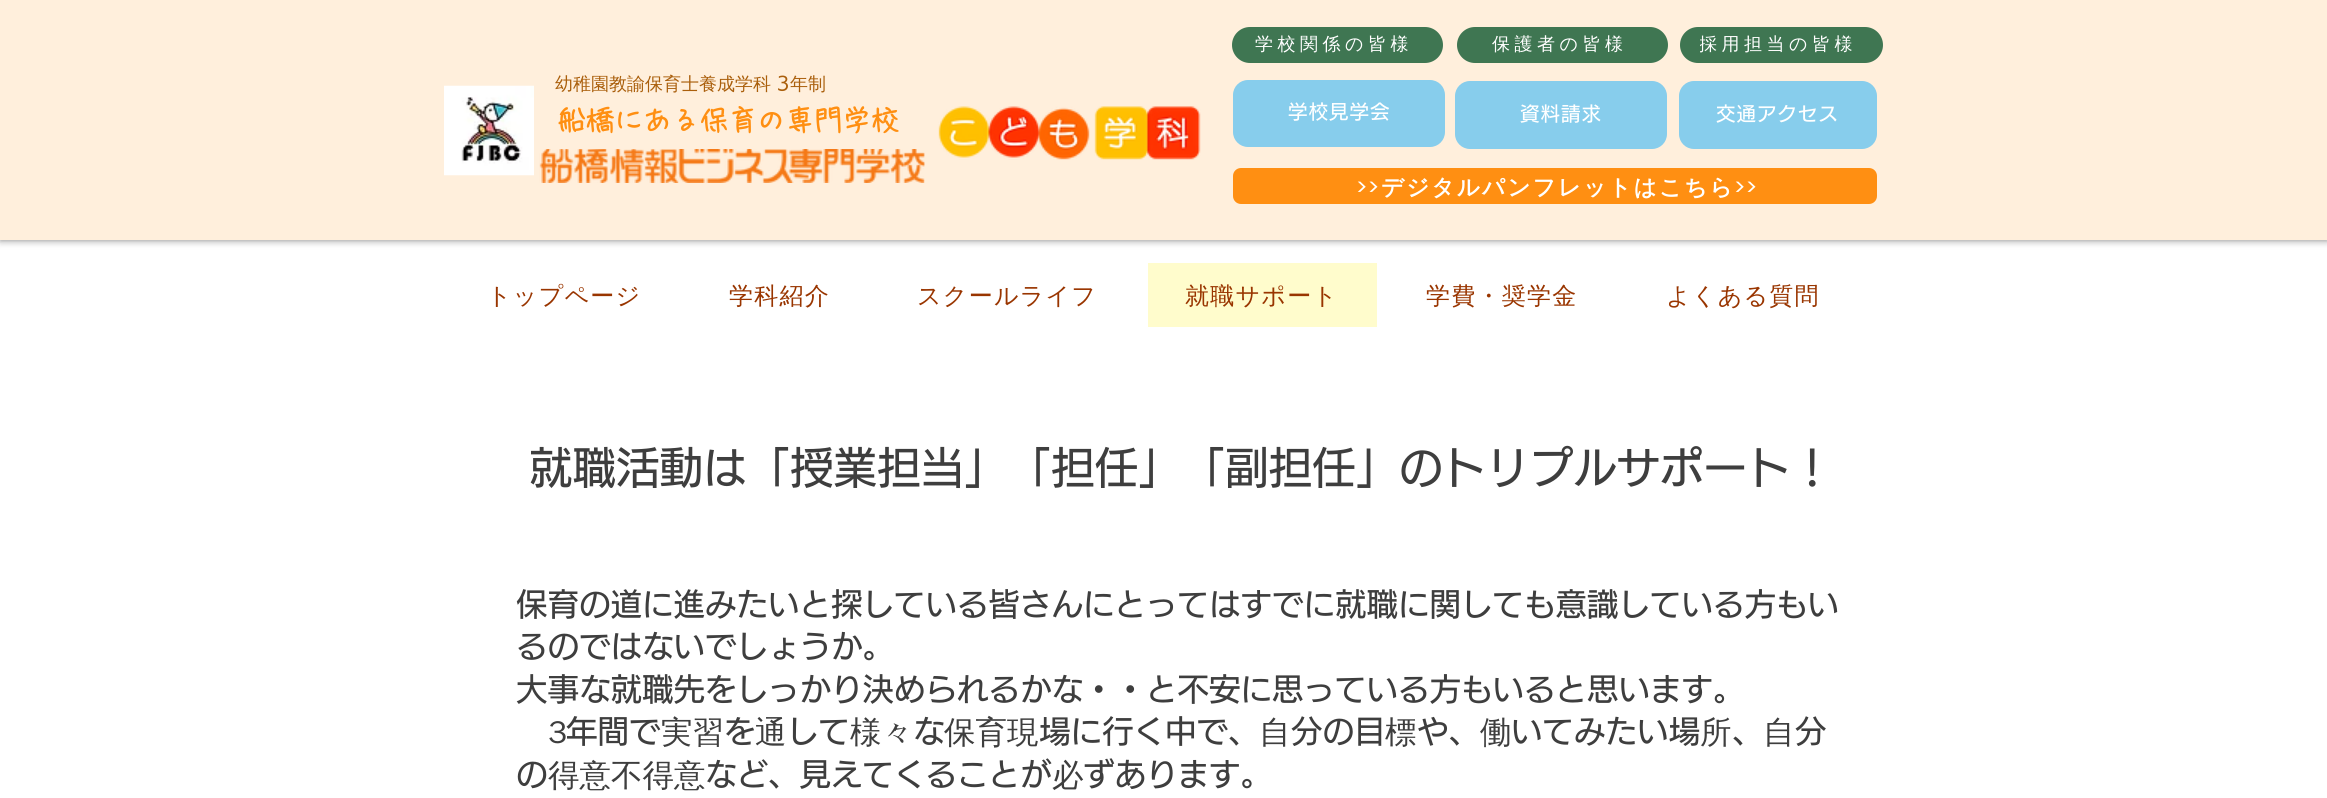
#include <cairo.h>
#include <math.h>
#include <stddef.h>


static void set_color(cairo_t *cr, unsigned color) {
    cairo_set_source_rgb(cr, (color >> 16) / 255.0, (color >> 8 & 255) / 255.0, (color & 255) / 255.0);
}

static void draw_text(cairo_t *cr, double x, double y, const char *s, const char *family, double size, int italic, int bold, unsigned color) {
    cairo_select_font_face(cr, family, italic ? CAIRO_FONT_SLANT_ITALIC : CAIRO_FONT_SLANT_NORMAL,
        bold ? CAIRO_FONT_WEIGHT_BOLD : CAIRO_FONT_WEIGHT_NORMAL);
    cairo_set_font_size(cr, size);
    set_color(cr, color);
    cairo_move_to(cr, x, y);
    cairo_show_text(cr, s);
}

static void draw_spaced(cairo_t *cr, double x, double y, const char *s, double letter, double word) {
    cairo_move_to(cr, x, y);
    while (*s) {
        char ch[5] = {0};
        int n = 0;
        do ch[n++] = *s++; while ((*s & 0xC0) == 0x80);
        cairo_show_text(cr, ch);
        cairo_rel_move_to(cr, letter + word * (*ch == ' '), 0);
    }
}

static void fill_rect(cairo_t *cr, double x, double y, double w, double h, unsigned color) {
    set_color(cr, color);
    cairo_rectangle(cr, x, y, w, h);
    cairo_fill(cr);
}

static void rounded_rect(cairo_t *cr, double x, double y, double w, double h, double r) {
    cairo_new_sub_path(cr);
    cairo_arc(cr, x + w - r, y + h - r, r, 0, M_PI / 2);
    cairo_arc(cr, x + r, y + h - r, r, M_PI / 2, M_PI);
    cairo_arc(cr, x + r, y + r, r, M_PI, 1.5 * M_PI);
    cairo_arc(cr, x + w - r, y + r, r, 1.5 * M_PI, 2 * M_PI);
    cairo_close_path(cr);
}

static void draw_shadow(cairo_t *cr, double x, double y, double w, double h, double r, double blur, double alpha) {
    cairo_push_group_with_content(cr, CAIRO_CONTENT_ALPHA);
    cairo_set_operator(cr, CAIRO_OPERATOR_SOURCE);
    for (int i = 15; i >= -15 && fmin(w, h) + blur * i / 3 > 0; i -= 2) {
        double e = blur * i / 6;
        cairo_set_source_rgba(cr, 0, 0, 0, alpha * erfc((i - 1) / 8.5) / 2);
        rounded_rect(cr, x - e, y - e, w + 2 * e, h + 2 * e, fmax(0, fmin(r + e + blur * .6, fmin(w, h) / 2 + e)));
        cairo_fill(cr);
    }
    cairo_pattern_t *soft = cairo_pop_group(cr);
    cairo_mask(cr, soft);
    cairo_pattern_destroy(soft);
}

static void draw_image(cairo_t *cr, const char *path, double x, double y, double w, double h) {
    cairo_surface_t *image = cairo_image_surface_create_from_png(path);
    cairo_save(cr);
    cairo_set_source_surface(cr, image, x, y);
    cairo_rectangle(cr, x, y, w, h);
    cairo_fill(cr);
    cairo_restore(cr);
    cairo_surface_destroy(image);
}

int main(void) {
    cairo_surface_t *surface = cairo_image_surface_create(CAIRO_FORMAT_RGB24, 2327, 798);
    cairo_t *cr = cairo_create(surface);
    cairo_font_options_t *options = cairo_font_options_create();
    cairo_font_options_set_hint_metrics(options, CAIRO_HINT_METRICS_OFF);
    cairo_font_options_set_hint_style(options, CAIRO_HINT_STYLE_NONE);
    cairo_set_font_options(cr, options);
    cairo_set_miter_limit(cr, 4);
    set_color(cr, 0xFFFFFF);
    cairo_paint(cr);
    set_color(cr, 0x000000);
    draw_shadow(cr, 0, 0, 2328, 240, 0, 4, 0.5);
    fill_rect(cr, 0, 0, 2327, 240, 0xFFEFDC);
    set_color(cr, 0x3F7652);
    rounded_rect(cr, 1232, 27, 211, 36, 18);
    cairo_fill(cr);
    cairo_select_font_face(cr, "WenQuanYi Zen Hei Medium", CAIRO_FONT_SLANT_NORMAL, CAIRO_FONT_WEIGHT_NORMAL);
    cairo_set_font_size(cr, 18);
    set_color(cr, 0xFFFFFF);
    draw_spaced(cr, 1255, 50, "学校関係の皆様", 4.5, 0);
    set_color(cr, 0x3F7652);
    rounded_rect(cr, 1457, 27, 211, 36, 18);
    cairo_fill(cr);
    set_color(cr, 0xFFFFFF);
    draw_spaced(cr, 1492, 50, "保護者の皆様", 4.5, 0);
    set_color(cr, 0x3F7652);
    rounded_rect(cr, 1680, 27, 203, 36, 18);
    cairo_fill(cr);
    cairo_save(cr);
    cairo_rectangle(cr, 1700, 33, 157, 26);
    cairo_clip(cr);
    set_color(cr, 0xFFFFFF);
    draw_spaced(cr, 1699, 50, "採用担当の皆様", 4.5, 0);
    cairo_restore(cr);
    draw_text(cr, 555, 90, "幼稚園教諭保育士養成学科", "WenQuanYi Zen Hei Medium", 18, 0, 0, 0xAA5F0C);
    draw_text(cr, 777, 90, "3", "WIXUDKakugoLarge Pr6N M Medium", 18, 0, 0, 0xAA5F0C);
    draw_text(cr, 790, 90, "年制", "WenQuanYi Zen Hei Medium", 18, 0, 0, 0xAA5F0C);
    draw_image(cr, "assets/img1.png", 444, 85, 90, 91);
    draw_text(cr, 557, 131, "船橋にある保育の専門学校", "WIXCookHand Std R", 28.5, 0, 1, 0xFF8F12);
    draw_image(cr, "assets/img2.png", 938, 106, 152, 54);
    draw_image(cr, "assets/img3.png", 1094, 106, 107, 54);
    draw_image(cr, "assets/img4.png", 539, 149, 386, 34);
    set_color(cr, 0x87CDEC);
    rounded_rect(cr, 1233, 80, 212, 67, 15);
    cairo_fill(cr);
    cairo_select_font_face(cr, "WIXUDKakugoLarge Pr6N M Medium", CAIRO_FONT_SLANT_NORMAL, CAIRO_FONT_WEIGHT_NORMAL);
    cairo_set_font_size(cr, 19.5);
    set_color(cr, 0xFFFFFF);
    draw_spaced(cr, 1288, 119, "学校見学会", 1, 0);
    set_color(cr, 0x87CDEC);
    rounded_rect(cr, 1455, 81, 212, 68, 15);
    cairo_fill(cr);
    set_color(cr, 0xFFFFFF);
    draw_spaced(cr, 1520, 121, "資料請求", 1, 0);
    set_color(cr, 0x87CDEC);
    rounded_rect(cr, 1679, 81, 198, 68, 15);
    cairo_fill(cr);
    set_color(cr, 0xFFFFFF);
    draw_spaced(cr, 1716, 121, "交通アクセス", 1, 0);
    set_color(cr, 0xFF8F12);
    rounded_rect(cr, 1233, 168, 644, 36, 8);
    cairo_fill(cr);
    cairo_select_font_face(cr, "Poppins", CAIRO_FONT_SLANT_NORMAL, CAIRO_FONT_WEIGHT_NORMAL);
    cairo_set_font_size(cr, 22.5);
    set_color(cr, 0xFFFFFF);
    draw_spaced(cr, 1357, 195, ">>", 2.25, 0);
    cairo_select_font_face(cr, "WenQuanYi Zen Hei", CAIRO_FONT_SLANT_NORMAL, CAIRO_FONT_WEIGHT_BOLD);
    draw_spaced(cr, 1381, 195, "デジタルパンフレットはこちら", 2.25, 0);
    cairo_select_font_face(cr, "Poppins", CAIRO_FONT_SLANT_NORMAL, CAIRO_FONT_WEIGHT_NORMAL);
    draw_spaced(cr, 1735, 195, ">>", 2.25, 0);
    cairo_select_font_face(cr, "WenQuanYi Zen Hei Medium", CAIRO_FONT_SLANT_NORMAL, CAIRO_FONT_WEIGHT_NORMAL);
    cairo_set_font_size(cr, 24);
    set_color(cr, 0x993500);
    draw_spaced(cr, 487, 304, "トップページ", 1.25, 0);
    draw_spaced(cr, 729, 304, "学科紹介", 1.25, 0);
    draw_spaced(cr, 917, 304, "スクールライフ", 1.25, 0);
    fill_rect(cr, 1148, 263, 229, 64, 0xFFFCCC);
    set_color(cr, 0x993500);
    draw_spaced(cr, 1185, 304, "就職サポート", 1.25, 0);
    draw_spaced(cr, 1426, 304, "学費・奨学金", 1.25, 0);
    draw_spaced(cr, 1666, 304, "よくある質問", 1.25, 0);
    draw_text(cr, 529, 484, "就職活動は「授業担当」「担任」「副担任」のトリプルサポート！", "WIXUDKakugoLarge Pr6N M Medium", 43.5, 0, 0, 0x3E3E3E);
    draw_text(cr, 516, 616, "保育の道に進みたいと探している皆さんにとってはすでに就職に関しても意識している方もい", "WIXUDKakugoLarge Pr6N M Medium", 31.5, 0, 0, 0x3E3E3E);
    draw_text(cr, 516, 658, "るのではないでしょうか。", "WIXUDKakugoLarge Pr6N M Medium", 31.5, 0, 0, 0x3E3E3E);
    draw_text(cr, 516, 701, "大事な就職先をしっかり決められるかな・・と不安に思っている方もいると思います。", "WIXUDKakugoLarge Pr6N M Medium", 31.5, 0, 0, 0x3E3E3E);
    draw_text(cr, 548, 743, "3", "WenQuanYi Zen Hei Medium", 31.5, 0, 0, 0x3E3E3E);
    draw_text(cr, 566, 743, "年間で", "WIXUDKakugoLarge Pr6N M Medium", 31.5, 0, 0, 0x3E3E3E);
    draw_text(cr, 661, 743, "実習", "WenQuanYi Zen Hei Medium", 31.5, 0, 0, 0x3E3E3E);
    draw_text(cr, 724, 743, "を", "WIXUDKakugoLarge Pr6N M Medium", 31.5, 0, 0, 0x3E3E3E);
    draw_text(cr, 755, 743, "通", "WenQuanYi Zen Hei Medium", 31.5, 0, 0, 0x3E3E3E);
    draw_text(cr, 787, 743, "して", "WIXUDKakugoLarge Pr6N M Medium", 31.5, 0, 0, 0x3E3E3E);
    draw_text(cr, 850, 743, "様々", "WenQuanYi Zen Hei Medium", 31.5, 0, 0, 0x3E3E3E);
    draw_text(cr, 913, 743, "な", "WIXUDKakugoLarge Pr6N M Medium", 31.5, 0, 0, 0x3E3E3E);
    draw_text(cr, 944, 743, "保育現", "WenQuanYi Zen Hei Medium", 31.5, 0, 0, 0x3E3E3E);
    draw_text(cr, 1039, 743, "場に行く中で、", "WIXUDKakugoLarge Pr6N M Medium", 31.5, 0, 0, 0x3E3E3E);
    draw_text(cr, 1259, 743, "自", "WenQuanYi Zen Hei Medium", 31.5, 0, 0, 0x3E3E3E);
    draw_text(cr, 1291, 743, "分の目", "WIXUDKakugoLarge Pr6N M Medium", 31.5, 0, 0, 0x3E3E3E);
    draw_text(cr, 1385, 743, "標", "WenQuanYi Zen Hei Medium", 31.5, 0, 0, 0x3E3E3E);
    draw_text(cr, 1417, 743, "や、", "WIXUDKakugoLarge Pr6N M Medium", 31.5, 0, 0, 0x3E3E3E);
    draw_text(cr, 1480, 743, "働", "WenQuanYi Zen Hei Medium", 31.5, 0, 0, 0x3E3E3E);
    draw_text(cr, 1511, 743, "いてみたい場", "WIXUDKakugoLarge Pr6N M Medium", 31.5, 0, 0, 0x3E3E3E);
    draw_text(cr, 1700, 743, "所", "WenQuanYi Zen Hei Medium", 31.5, 0, 0, 0x3E3E3E);
    draw_text(cr, 1732, 743, "、", "WIXUDKakugoLarge Pr6N M Medium", 31.5, 0, 0, 0x3E3E3E);
    draw_text(cr, 1763, 743, "自", "WenQuanYi Zen Hei Medium", 31.5, 0, 0, 0x3E3E3E);
    draw_text(cr, 1795, 743, "分", "WIXUDKakugoLarge Pr6N M Medium", 31.5, 0, 0, 0x3E3E3E);
    draw_text(cr, 516, 786, "の", "WIXUDKakugoLarge Pr6N M Medium", 31.5, 0, 0, 0x3E3E3E);
    draw_text(cr, 548, 786, "得意不得意", "WenQuanYi Zen Hei Medium", 31.5, 0, 0, 0x3E3E3E);
    draw_text(cr, 705, 786, "など、見えてくることが", "WIXUDKakugoLarge Pr6N M Medium", 31.5, 0, 0, 0x3E3E3E);
    draw_text(cr, 1052, 786, "必", "WenQuanYi Zen Hei Medium", 31.5, 0, 0, 0x3E3E3E);
    draw_text(cr, 1083, 786, "ずあります。", "WIXUDKakugoLarge Pr6N M Medium", 31.5, 0, 0, 0x3E3E3E);
    cairo_surface_write_to_png(surface, "output.png");
    cairo_font_options_destroy(options);
    cairo_destroy(cr);
    cairo_surface_destroy(surface);
    return 0;
}
